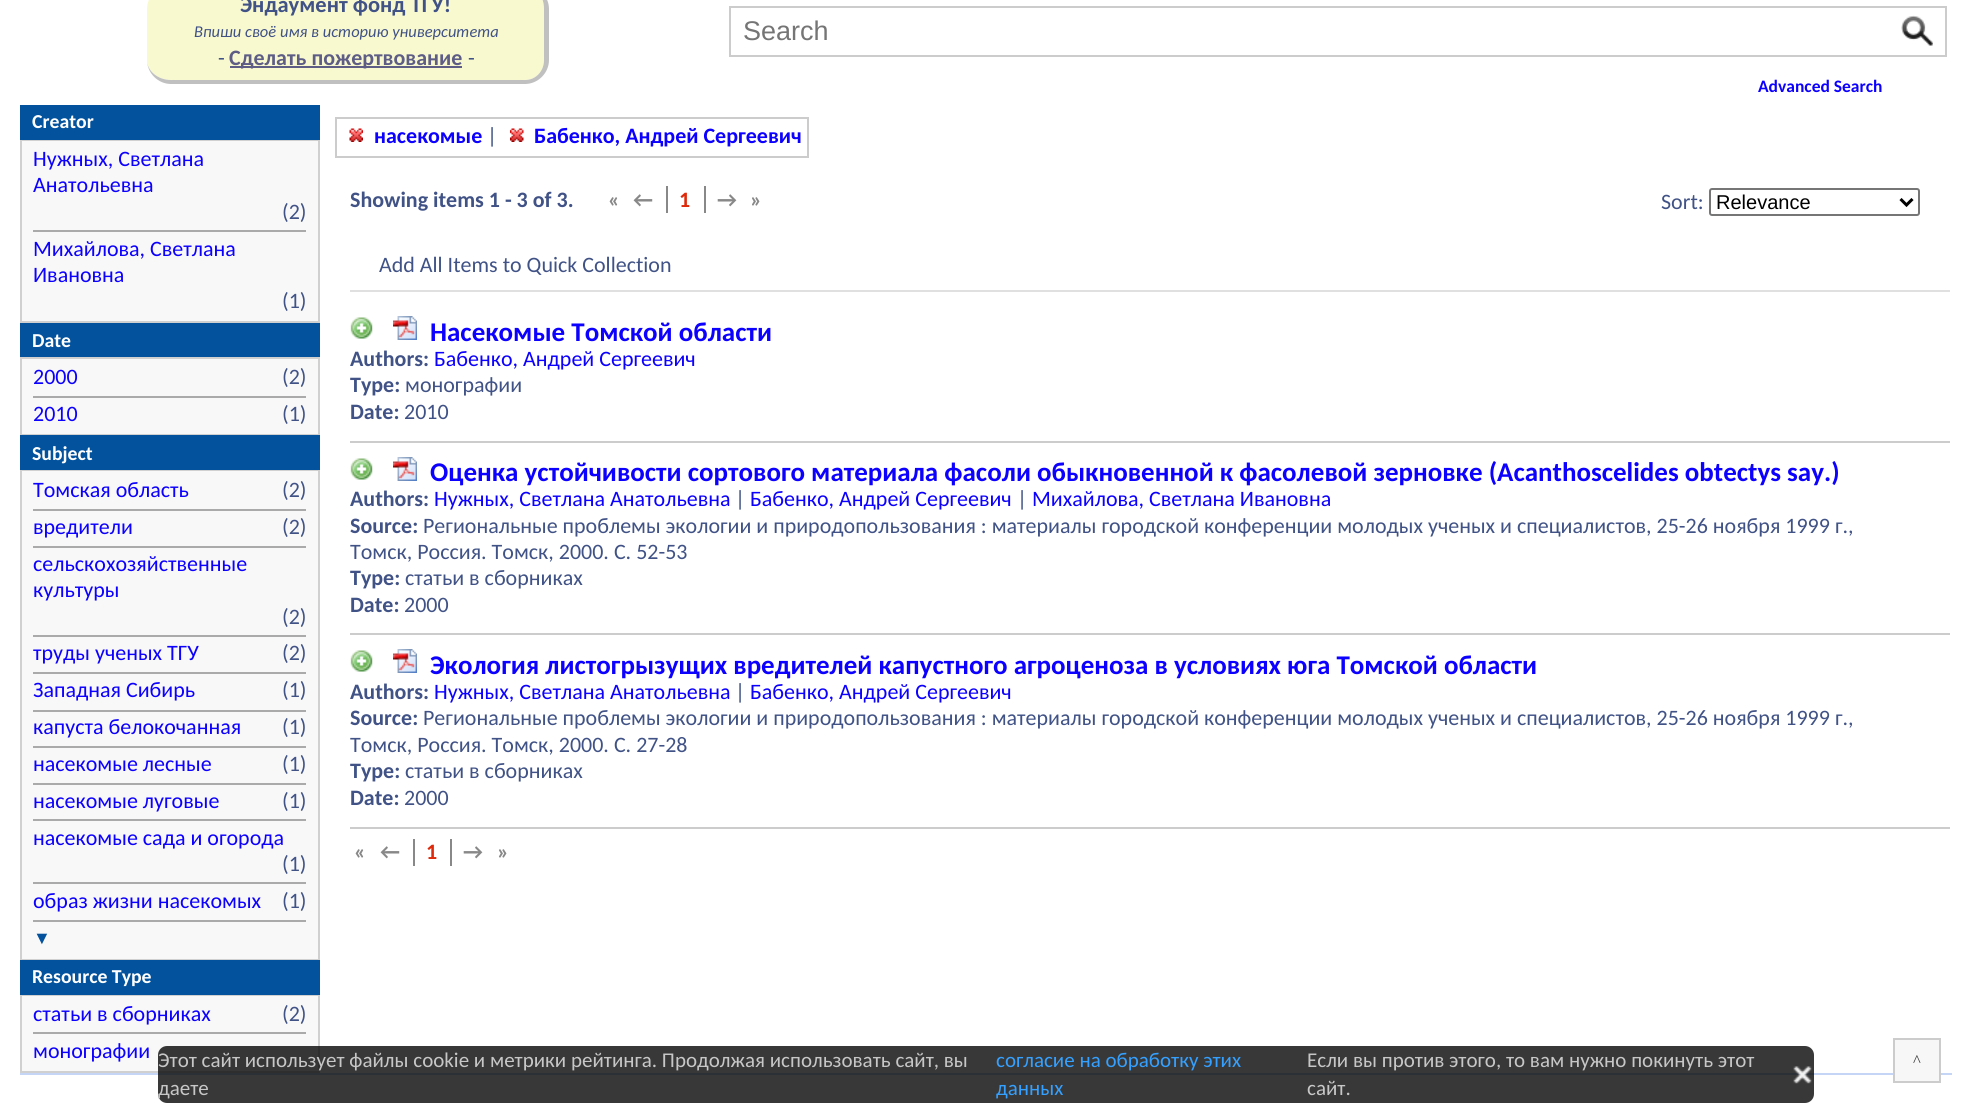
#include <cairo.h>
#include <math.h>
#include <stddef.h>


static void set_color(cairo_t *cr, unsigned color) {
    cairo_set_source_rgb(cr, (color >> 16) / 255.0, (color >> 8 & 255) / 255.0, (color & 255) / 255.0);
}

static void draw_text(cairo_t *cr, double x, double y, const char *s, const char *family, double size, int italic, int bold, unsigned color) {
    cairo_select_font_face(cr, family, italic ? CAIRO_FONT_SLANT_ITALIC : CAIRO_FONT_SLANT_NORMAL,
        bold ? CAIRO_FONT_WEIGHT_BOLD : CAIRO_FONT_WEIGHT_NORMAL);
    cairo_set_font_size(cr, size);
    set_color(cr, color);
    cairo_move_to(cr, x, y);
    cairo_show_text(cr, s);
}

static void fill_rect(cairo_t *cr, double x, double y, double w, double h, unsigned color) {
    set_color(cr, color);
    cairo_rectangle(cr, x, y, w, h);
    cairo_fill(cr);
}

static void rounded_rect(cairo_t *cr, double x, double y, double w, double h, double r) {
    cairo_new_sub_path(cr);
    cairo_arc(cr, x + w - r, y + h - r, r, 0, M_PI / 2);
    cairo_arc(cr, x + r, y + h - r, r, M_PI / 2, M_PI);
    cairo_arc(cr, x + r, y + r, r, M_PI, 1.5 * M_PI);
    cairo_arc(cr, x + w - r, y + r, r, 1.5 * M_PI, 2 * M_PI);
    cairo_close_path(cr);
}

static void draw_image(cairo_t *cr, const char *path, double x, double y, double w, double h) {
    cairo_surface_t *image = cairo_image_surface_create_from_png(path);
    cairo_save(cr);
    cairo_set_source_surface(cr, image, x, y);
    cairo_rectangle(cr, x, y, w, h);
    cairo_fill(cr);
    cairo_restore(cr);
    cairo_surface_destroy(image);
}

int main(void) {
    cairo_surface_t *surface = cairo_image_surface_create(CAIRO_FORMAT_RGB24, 1971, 1113);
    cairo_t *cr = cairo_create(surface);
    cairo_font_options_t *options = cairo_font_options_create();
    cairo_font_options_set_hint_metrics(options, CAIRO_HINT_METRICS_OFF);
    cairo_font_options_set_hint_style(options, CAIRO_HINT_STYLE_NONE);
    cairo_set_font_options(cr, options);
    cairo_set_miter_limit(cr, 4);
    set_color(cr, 0xFFFFFF);
    cairo_paint(cr);
    set_color(cr, 0xF9F9D0);
    cairo_new_path(cr);
    cairo_move_to(cr, 171, -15);
    cairo_line_to(cr, 525, -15);
    cairo_curve_to(cr, 536, -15, 544, -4, 544, 9);
    cairo_line_to(cr, 544, 60);
    cairo_curve_to(cr, 544, 71, 536, 80, 525, 80);
    cairo_line_to(cr, 171, 80);
    cairo_curve_to(cr, 158, 80, 147, 71, 147, 60);
    cairo_line_to(cr, 147, 9);
    cairo_curve_to(cr, 147, -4, 158, -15, 171, -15);
    cairo_close_path(cr);
    cairo_fill(cr);
    set_color(cr, 0xC0C0C0);
    cairo_set_fill_rule(cr, CAIRO_FILL_RULE_EVEN_ODD);
    cairo_new_path(cr);
    cairo_move_to(cr, 171, -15);
    cairo_line_to(cr, 525, -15);
    cairo_curve_to(cr, 538, -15, 549, -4, 549, 9);
    cairo_line_to(cr, 549, 60);
    cairo_curve_to(cr, 549, 73, 538, 84, 525, 84);
    cairo_line_to(cr, 171, 84);
    cairo_curve_to(cr, 158, 84, 147, 73, 147, 60);
    cairo_line_to(cr, 147, 9);
    cairo_curve_to(cr, 147, -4, 158, -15, 171, -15);
    cairo_close_path(cr);
    cairo_move_to(cr, 171, -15);
    cairo_line_to(cr, 525, -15);
    cairo_curve_to(cr, 536, -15, 544, -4, 544, 9);
    cairo_line_to(cr, 544, 60);
    cairo_curve_to(cr, 544, 71, 536, 80, 525, 80);
    cairo_line_to(cr, 171, 80);
    cairo_curve_to(cr, 158, 80, 147, 71, 147, 60);
    cairo_line_to(cr, 147, 9);
    cairo_curve_to(cr, 147, -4, 158, -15, 171, -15);
    cairo_close_path(cr);
    cairo_fill(cr);
    draw_text(cr, 240, 12, "Эндаумент фонд ТГУ!", "Carlito", 22.5, 0, 1, 0x405286);
    draw_text(cr, 194, 37, "Впиши своё имя в историю университета", "Carlito", 16.5, 1, 0, 0x405286);
    draw_text(cr, 218, 65, "-", "Carlito", 22, 0, 0, 0x405286);
    fill_rect(cr, 230, 66, 232, 2, 0x5D5D86);
    draw_text(cr, 229, 65, "Сделать пожертвование", "Carlito", 22, 0, 1, 0x5D5D86);
    draw_text(cr, 468, 65, "-", "Carlito", 22, 0, 0, 0x405286);
    cairo_rectangle(cr, 730, 7, 1216, 49);
    set_color(cr, 0xCCCCCC);
    cairo_stroke(cr);
    draw_text(cr, 743, 40, "Search", "Liberation Sans", 27, 0, 0, 0x757575);
    draw_image(cr, "assets/img1.png", 1901, 15, 32, 31);
    draw_text(cr, 1758, 92, "Advanced Search", "Carlito", 17.5, 0, 1, 0x0C00FF);
    fill_rect(cr, 20, 321, 300, 2, 0xD0D0D0);
    fill_rect(cr, 20, 105, 300, 35, 0x02529D);
    fill_rect(cr, 20, 140, 300, 1, 0xD0D0D0);
    draw_text(cr, 32, 128, "Creator", "Carlito", 19.75, 0, 1, 0xFFFFFF);
    fill_rect(cr, 22, 141, 296, 180, 0xF8F8F8);
    fill_rect(cr, 318, 141, 2, 180, 0xD0D0D0);
    fill_rect(cr, 20, 141, 2, 180, 0xD0D0D0);
    draw_text(cr, 33, 166, "Нужных, Светлана", "Carlito", 22, 0, 0, 0x0C00FF);
    draw_text(cr, 33, 192, "Анатольевна", "Carlito", 22, 0, 0, 0x0C00FF);
    draw_text(cr, 282, 219, "(2)", "Carlito", 22, 0, 0, 0x405286);
    fill_rect(cr, 33, 230, 273, 2, 0xAAAAAA);
    draw_text(cr, 33, 256, "Михайлова, Светлана", "Carlito", 22, 0, 0, 0x0C00FF);
    draw_text(cr, 33, 282, "Ивановна", "Carlito", 22, 0, 0, 0x0C00FF);
    draw_text(cr, 282, 308, "(1)", "Carlito", 22, 0, 0, 0x405286);
    fill_rect(cr, 20, 434, 300, 1, 0xD0D0D0);
    fill_rect(cr, 20, 323, 300, 34, 0x02529D);
    fill_rect(cr, 20, 357, 300, 2, 0xD0D0D0);
    draw_text(cr, 32, 347, "Date", "Carlito", 19.75, 0, 1, 0xFFFFFF);
    fill_rect(cr, 22, 359, 296, 75, 0xF8F8F8);
    fill_rect(cr, 318, 359, 2, 75, 0xD0D0D0);
    fill_rect(cr, 20, 359, 2, 75, 0xD0D0D0);
    draw_text(cr, 33, 384, "2000", "Carlito", 22, 0, 0, 0x0C00FF);
    draw_text(cr, 282, 384, "(2)", "Carlito", 22, 0, 0, 0x405286);
    fill_rect(cr, 33, 396, 273, 2, 0xAAAAAA);
    draw_text(cr, 33, 421, "2010", "Carlito", 22, 0, 0, 0x0C00FF);
    draw_text(cr, 282, 421, "(1)", "Carlito", 22, 0, 0, 0x405286);
    fill_rect(cr, 20, 959, 300, 1, 0xD0D0D0);
    fill_rect(cr, 20, 435, 300, 35, 0x02529D);
    fill_rect(cr, 20, 470, 300, 1, 0xD0D0D0);
    draw_text(cr, 32, 460, "Subject", "Carlito", 19.75, 0, 1, 0xFFFFFF);
    fill_rect(cr, 22, 471, 296, 488, 0xF8F8F8);
    fill_rect(cr, 318, 471, 2, 488, 0xD0D0D0);
    fill_rect(cr, 20, 471, 2, 488, 0xD0D0D0);
    draw_text(cr, 33, 497, "Томская область", "Carlito", 22, 0, 0, 0x0C00FF);
    draw_text(cr, 282, 497, "(2)", "Carlito", 22, 0, 0, 0x405286);
    fill_rect(cr, 33, 509, 273, 2, 0xAAAAAA);
    draw_text(cr, 33, 534, "вредители", "Carlito", 22, 0, 0, 0x0C00FF);
    draw_text(cr, 282, 534, "(2)", "Carlito", 22, 0, 0, 0x405286);
    fill_rect(cr, 33, 546, 273, 2, 0xAAAAAA);
    draw_text(cr, 33, 571, "сельскохозяйственные", "Carlito", 22, 0, 0, 0x0C00FF);
    draw_text(cr, 33, 597, "культуры", "Carlito", 22, 0, 0, 0x0C00FF);
    draw_text(cr, 282, 624, "(2)", "Carlito", 22, 0, 0, 0x405286);
    fill_rect(cr, 33, 635, 273, 2, 0xAAAAAA);
    draw_text(cr, 33, 660, "труды ученых ТГУ", "Carlito", 22, 0, 0, 0x0C00FF);
    draw_text(cr, 282, 660, "(2)", "Carlito", 22, 0, 0, 0x405286);
    fill_rect(cr, 33, 672, 273, 2, 0xAAAAAA);
    draw_text(cr, 33, 697, "Западная Сибирь", "Carlito", 22, 0, 0, 0x0C00FF);
    draw_text(cr, 282, 697, "(1)", "Carlito", 22, 0, 0, 0x405286);
    fill_rect(cr, 33, 710, 273, 2, 0xAAAAAA);
    draw_text(cr, 33, 734, "капуста белокочанная", "Carlito", 22, 0, 0, 0x0C00FF);
    draw_text(cr, 282, 734, "(1)", "Carlito", 22, 0, 0, 0x405286);
    fill_rect(cr, 33, 746, 273, 2, 0xAAAAAA);
    draw_text(cr, 33, 771, "насекомые лесные", "Carlito", 22, 0, 0, 0x0C00FF);
    draw_text(cr, 282, 771, "(1)", "Carlito", 22, 0, 0, 0x405286);
    fill_rect(cr, 33, 783, 273, 2, 0xAAAAAA);
    draw_text(cr, 33, 808, "насекомые луговые", "Carlito", 22, 0, 0, 0x0C00FF);
    draw_text(cr, 282, 808, "(1)", "Carlito", 22, 0, 0, 0x405286);
    fill_rect(cr, 33, 819, 273, 2, 0xAAAAAA);
    draw_text(cr, 33, 845, "насекомые сада и огорода", "Carlito", 22, 0, 0, 0x0C00FF);
    draw_text(cr, 282, 871, "(1)", "Carlito", 22, 0, 0, 0x405286);
    fill_rect(cr, 33, 882, 273, 2, 0xAAAAAA);
    draw_text(cr, 33, 908, "образ жизни насекомых", "Carlito", 22, 0, 0, 0x0C00FF);
    draw_text(cr, 282, 908, "(1)", "Carlito", 22, 0, 0, 0x405286);
    fill_rect(cr, 33, 920, 273, 2, 0xAAAAAA);
    draw_text(cr, 33, 944, "▼", "Liberation Sans", 18, 0, 1, 0x02529D);
    fill_rect(cr, 20, 1071, 300, 2, 0xD0D0D0);
    fill_rect(cr, 20, 960, 300, 35, 0x02529D);
    fill_rect(cr, 20, 995, 300, 1, 0xD0D0D0);
    draw_text(cr, 32, 983, "Resource Type", "Carlito", 19.75, 0, 1, 0xFFFFFF);
    fill_rect(cr, 22, 996, 296, 75, 0xF8F8F8);
    fill_rect(cr, 318, 996, 2, 75, 0xD0D0D0);
    fill_rect(cr, 20, 996, 2, 75, 0xD0D0D0);
    draw_text(cr, 33, 1021, "статьи в сборниках", "Carlito", 22, 0, 0, 0x0C00FF);
    draw_text(cr, 282, 1021, "(2)", "Carlito", 22, 0, 0, 0x405286);
    fill_rect(cr, 33, 1032, 273, 2, 0xAAAAAA);
    draw_text(cr, 33, 1058, "монографии", "Carlito", 22, 0, 0, 0x0C00FF);
    cairo_rectangle(cr, 336, 118, 472, 39);
    set_color(cr, 0xCCCCCC);
    cairo_stroke(cr);
    draw_image(cr, "assets/img2.png", 349, 128, 14, 14);
    draw_text(cr, 374, 143, "насекомые", "Carlito", 22, 0, 1, 0x0C00FF);
    draw_text(cr, 487, 143, "|", "Carlito", 22, 0, 0, 0x405286);
    draw_image(cr, "assets/img3.png", 510, 128, 14, 14);
    draw_text(cr, 534, 143, "Бабенко, Андрей Сергеевич", "Carlito", 22, 0, 1, 0x0C00FF);
    draw_text(cr, 350, 207, "Showing items 1 - 3 of 3.", "Carlito", 22, 0, 1, 0x405286);
    draw_text(cr, 608, 207, "«", "Carlito", 22, 0, 1, 0x888888);
    draw_text(cr, 633, 207, "←", "Carlito", 22, 0, 1, 0x888888);
    fill_rect(cr, 666, 186, 2, 27, 0x888888);
    draw_text(cr, 679, 207, "1", "Carlito", 22, 0, 1, 0xDE290A);
    draw_text(cr, 717, 207, "→", "Carlito", 22, 0, 1, 0x888888);
    fill_rect(cr, 704, 186, 2, 27, 0x888888);
    draw_text(cr, 750, 207, "»", "Carlito", 22, 0, 1, 0x888888);
    draw_text(cr, 1661, 209, "Sort:", "Carlito", 22, 0, 0, 0x405286);
    rounded_rect(cr, 1710, 189, 209, 26, 2);
    set_color(cr, 0x767676);
    cairo_stroke(cr);
    cairo_new_path(cr);
    cairo_move_to(cr, 1900.5, 199);
    cairo_line_to(cr, 1906.5, 205);
    cairo_line_to(cr, 1912.5, 199);
    set_color(cr, 0x000000);
    cairo_set_line_width(cr, 3);
    cairo_stroke(cr);
    draw_text(cr, 1716, 209, "Relevance", "Liberation Sans", 20, 0, 0, 0x000000);
    draw_text(cr, 379, 272, "Add All Items to Quick Collection", "Carlito", 22, 0, 0, 0x405286);
    fill_rect(cr, 350, 290, 1600, 2, 0xE0E0E0);
    fill_rect(cr, 350, 441, 1600, 2, 0xCCCCCC);
    draw_image(cr, "assets/img4.png", 350, 317, 23, 22);
    draw_image(cr, "assets/img5.png", 393, 316, 24, 24);
    draw_text(cr, 430, 341, "Насекомые Томской области", "Carlito", 27, 0, 1, 0x0C00FF);
    draw_text(cr, 350, 366, "Authors:", "Carlito", 22, 0, 1, 0x405286);
    draw_text(cr, 434, 366, "Бабенко, Андрей Сергеевич", "Carlito", 22, 0, 0, 0x0C00FF);
    draw_text(cr, 350, 392, "Type:", "Carlito", 22, 0, 1, 0x405286);
    draw_text(cr, 405, 392, "монографии", "Carlito", 22, 0, 0, 0x405286);
    draw_text(cr, 350, 419, "Date:", "Carlito", 22, 0, 1, 0x405286);
    draw_text(cr, 404, 419, "2010", "Carlito", 22, 0, 0, 0x405286);
    fill_rect(cr, 350, 633, 1600, 2, 0xCCCCCC);
    draw_image(cr, "assets/img4.png", 350, 458, 23, 22);
    draw_image(cr, "assets/img5.png", 393, 457, 24, 24);
    draw_text(cr, 430, 481, "Оценка устойчивости сортового материала фасоли обыкновенной к фасолевой зерновке (Acanthoscelides obtectys say.)", "Carlito", 27, 0, 1, 0x0C00FF);
    draw_text(cr, 350, 506, "Authors:", "Carlito", 22, 0, 1, 0x405286);
    draw_text(cr, 434, 506, "Нужных, Светлана Анатольевна", "Carlito", 22, 0, 0, 0x0C00FF);
    draw_text(cr, 735, 506, "|", "Carlito", 22, 0, 0, 0x405286);
    draw_text(cr, 750, 506, "Бабенко, Андрей Сергеевич", "Carlito", 22, 0, 0, 0x0C00FF);
    draw_text(cr, 1017, 506, "|", "Carlito", 22, 0, 0, 0x405286);
    draw_text(cr, 1032, 506, "Михайлова, Светлана Ивановна", "Carlito", 22, 0, 0, 0x0C00FF);
    draw_text(cr, 350, 533, "Source:", "Carlito", 22, 0, 1, 0x405286);
    draw_text(cr, 423, 533, "Региональные проблемы экологии и природопользования : материалы городской конференции молодых ученых и специалистов, 25-26 ноября 1999 г.,", "Carlito", 22, 0, 0, 0x405286);
    draw_text(cr, 350, 559, "Томск, Россия. Томск, 2000. С. 52-53", "Carlito", 22, 0, 0, 0x405286);
    draw_text(cr, 350, 585, "Type:", "Carlito", 22, 0, 1, 0x405286);
    draw_text(cr, 405, 585, "статьи в сборниках", "Carlito", 22, 0, 0, 0x405286);
    draw_text(cr, 350, 612, "Date:", "Carlito", 22, 0, 1, 0x405286);
    draw_text(cr, 404, 612, "2000", "Carlito", 22, 0, 0, 0x405286);
    fill_rect(cr, 350, 827, 1600, 2, 0xCCCCCC);
    draw_image(cr, "assets/img4.png", 350, 650, 23, 22);
    draw_image(cr, "assets/img5.png", 393, 649, 24, 24);
    draw_text(cr, 430, 674, "Экология листогрызущих вредителей капустного агроценоза в условиях юга Томской области", "Carlito", 27, 0, 1, 0x0C00FF);
    draw_text(cr, 350, 699, "Authors:", "Carlito", 22, 0, 1, 0x405286);
    draw_text(cr, 434, 699, "Нужных, Светлана Анатольевна", "Carlito", 22, 0, 0, 0x0C00FF);
    draw_text(cr, 735, 699, "|", "Carlito", 22, 0, 0, 0x405286);
    draw_text(cr, 750, 699, "Бабенко, Андрей Сергеевич", "Carlito", 22, 0, 0, 0x0C00FF);
    draw_text(cr, 350, 725, "Source:", "Carlito", 22, 0, 1, 0x405286);
    draw_text(cr, 423, 725, "Региональные проблемы экологии и природопользования : материалы городской конференции молодых ученых и специалистов, 25-26 ноября 1999 г.,", "Carlito", 22, 0, 0, 0x405286);
    draw_text(cr, 350, 752, "Томск, Россия. Томск, 2000. С. 27-28", "Carlito", 22, 0, 0, 0x405286);
    draw_text(cr, 350, 778, "Type:", "Carlito", 22, 0, 1, 0x405286);
    draw_text(cr, 405, 778, "статьи в сборниках", "Carlito", 22, 0, 0, 0x405286);
    draw_text(cr, 350, 805, "Date:", "Carlito", 22, 0, 1, 0x405286);
    draw_text(cr, 404, 805, "2000", "Carlito", 22, 0, 0, 0x405286);
    draw_text(cr, 354, 859, "«", "Carlito", 22, 0, 1, 0x888888);
    draw_text(cr, 380, 859, "←", "Carlito", 22, 0, 1, 0x888888);
    fill_rect(cr, 413, 839, 2, 27, 0x888888);
    draw_text(cr, 426, 859, "1", "Carlito", 22, 0, 1, 0xDE290A);
    draw_text(cr, 463, 859, "→", "Carlito", 22, 0, 1, 0x888888);
    fill_rect(cr, 450, 839, 2, 27, 0x888888);
    draw_text(cr, 497, 859, "»", "Carlito", 22, 0, 1, 0x888888);
    fill_rect(cr, 20, 1073, 1932, 2, 0xC5D5F6);
    cairo_set_source_rgba(cr, 0, 0, 0, 0.78);
    rounded_rect(cr, 158, 1046, 1656, 57, 9);
    cairo_fill(cr);
    draw_text(cr, 158, 1067, "Этот сайт использует файлы cookie и метрики рейтинга. Продолжая использовать сайт, вы", "Carlito", 21, 0, 0, 0xC7C7C7);
    draw_text(cr, 996, 1067, "согласие на обработку этих", "Carlito", 21, 0, 0, 0x34A0FF);
    draw_text(cr, 996, 1095, "данных", "Carlito", 21, 0, 0, 0x34A0FF);
    draw_text(cr, 1307, 1067, "Если вы против этого, то вам нужно покинуть этот", "Carlito", 21, 0, 0, 0xC7C7C7);
    draw_image(cr, "assets/img6.png", 1793, 1066, 19, 18);
    draw_text(cr, 158, 1095, "даете", "Carlito", 21, 0, 0, 0xC7C7C7);
    draw_text(cr, 1307, 1095, "сайт.", "Carlito", 21, 0, 0, 0xC7C7C7);
    set_color(cr, 0xF7F7F7);
    cairo_rectangle(cr, 1894, 1039, 46, 43);
    cairo_fill_preserve(cr);
    set_color(cr, 0xCCCCCC);
    cairo_set_line_width(cr, 2);
    cairo_stroke(cr);
    draw_text(cr, 1913, 1066, "^", "Liberation Serif", 16.5, 0, 0, 0x333333);
    cairo_surface_write_to_png(surface, "output.png");
    cairo_font_options_destroy(options);
    cairo_destroy(cr);
    cairo_surface_destroy(surface);
    return 0;
}
